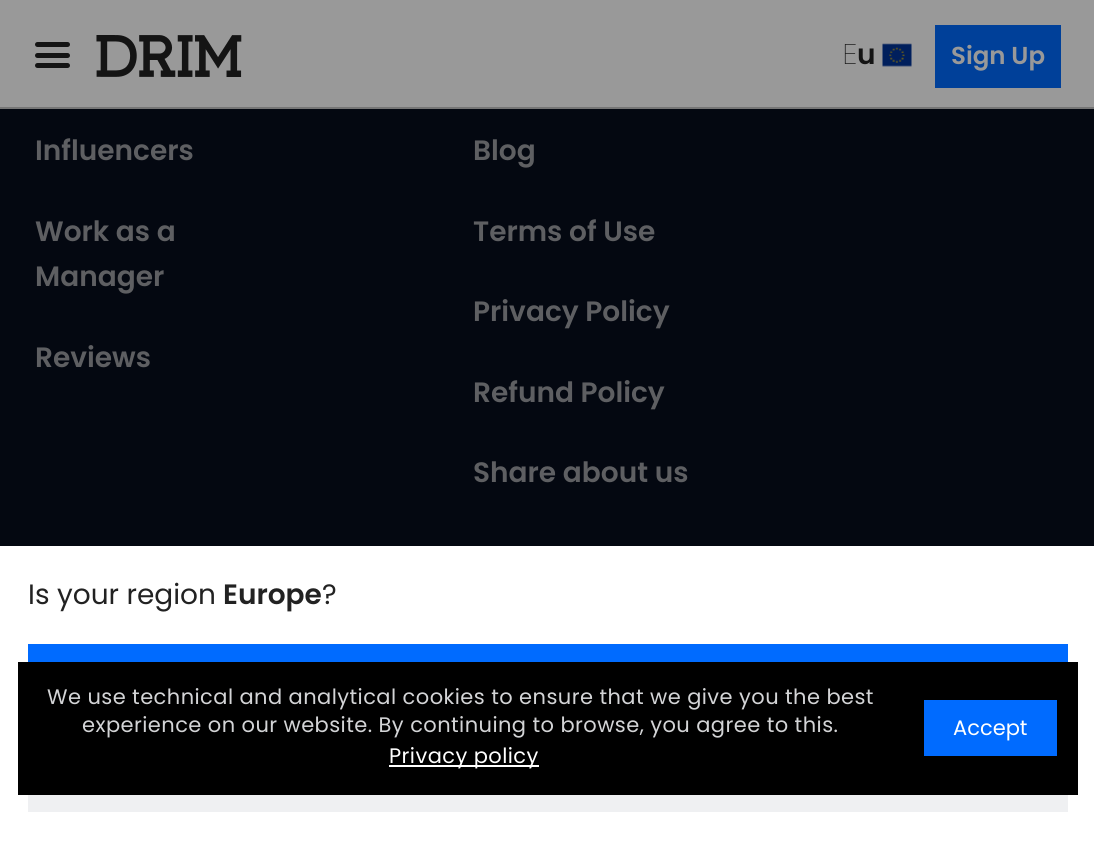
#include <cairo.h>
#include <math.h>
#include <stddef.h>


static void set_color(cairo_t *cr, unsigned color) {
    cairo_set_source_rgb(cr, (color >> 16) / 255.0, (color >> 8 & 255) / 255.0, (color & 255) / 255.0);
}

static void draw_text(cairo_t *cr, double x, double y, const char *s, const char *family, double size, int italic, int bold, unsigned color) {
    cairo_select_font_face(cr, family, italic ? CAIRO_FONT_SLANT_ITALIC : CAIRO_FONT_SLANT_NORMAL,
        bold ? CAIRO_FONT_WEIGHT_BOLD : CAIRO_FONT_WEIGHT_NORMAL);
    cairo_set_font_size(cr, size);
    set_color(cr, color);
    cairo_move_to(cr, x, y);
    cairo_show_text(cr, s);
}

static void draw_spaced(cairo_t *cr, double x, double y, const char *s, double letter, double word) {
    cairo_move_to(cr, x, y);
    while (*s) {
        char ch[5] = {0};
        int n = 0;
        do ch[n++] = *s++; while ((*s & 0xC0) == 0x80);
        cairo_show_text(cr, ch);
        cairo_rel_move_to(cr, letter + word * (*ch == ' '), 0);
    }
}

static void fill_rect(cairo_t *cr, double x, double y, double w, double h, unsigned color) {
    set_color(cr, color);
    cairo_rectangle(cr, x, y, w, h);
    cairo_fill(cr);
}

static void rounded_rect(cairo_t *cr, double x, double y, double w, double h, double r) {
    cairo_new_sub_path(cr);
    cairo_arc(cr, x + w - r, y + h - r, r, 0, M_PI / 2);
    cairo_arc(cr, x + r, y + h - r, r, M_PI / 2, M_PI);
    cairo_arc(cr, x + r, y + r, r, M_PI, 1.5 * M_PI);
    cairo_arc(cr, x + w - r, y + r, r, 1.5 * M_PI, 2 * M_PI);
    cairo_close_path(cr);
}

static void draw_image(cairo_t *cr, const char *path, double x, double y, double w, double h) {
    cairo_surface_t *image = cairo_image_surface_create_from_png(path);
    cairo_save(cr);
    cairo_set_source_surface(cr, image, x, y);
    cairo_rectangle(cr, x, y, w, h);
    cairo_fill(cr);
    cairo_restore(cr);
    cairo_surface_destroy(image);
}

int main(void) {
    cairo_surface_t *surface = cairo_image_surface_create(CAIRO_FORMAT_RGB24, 1094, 847);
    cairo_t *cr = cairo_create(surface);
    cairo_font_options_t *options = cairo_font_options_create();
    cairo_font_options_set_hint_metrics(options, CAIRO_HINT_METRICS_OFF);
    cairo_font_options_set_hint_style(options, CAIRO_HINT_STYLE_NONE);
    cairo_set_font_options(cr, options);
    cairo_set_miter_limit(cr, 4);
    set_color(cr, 0x040811);
    cairo_paint(cr);
    fill_rect(cr, 0, 0, 1094, 107, 0x999999);
    fill_rect(cr, 0, 107, 1094, 2, 0x767676);
    set_color(cr, 0x141414);
    rounded_rect(cr, 35, 42, 35, 5, 2.5);
    cairo_fill(cr);
    rounded_rect(cr, 35, 53, 35, 5, 2.5);
    cairo_fill(cr);
    rounded_rect(cr, 35, 63, 35, 5, 2.5);
    cairo_fill(cr);
    draw_image(cr, "assets/img1.png", 96, 35, 146, 42);
    draw_text(cr, 842, 64, "E", "Noto Sans Thin", 28, 0, 0, 0x141414);
    draw_text(cr, 857, 64, "u", "Poppins SemiBold", 28, 0, 0, 0x141414);
    draw_image(cr, "assets/img2.png", 882, 43, 30, 24);
    fill_rect(cr, 0, 546, 1094, 301, 0xFFFFFF);
    draw_text(cr, 28, 604, "Is your region", "Poppins", 28, 0, 0, 0x222222);
    draw_text(cr, 223, 604, "Europe", "Poppins SemiBold", 28, 0, 0, 0x222222);
    draw_text(cr, 322, 604, "?", "Poppins", 28, 0, 0, 0x222222);
    fill_rect(cr, 28, 644, 1040, 18, 0x006BFF);
    fill_rect(cr, 28, 795, 1040, 17, 0xEFF0F2);
    fill_rect(cr, 935, 25, 126, 63, 0x004099);
    draw_text(cr, 951, 64, "Sign Up", "Poppins SemiBold", 24.5, 0, 0, 0x999999);
    draw_text(cr, 35, 160, "Influencers", "Poppins SemiBold", 28, 0, 0, 0x5E5F62);
    draw_text(cr, 35, 241, "Work as a", "Poppins SemiBold", 28, 0, 0, 0x5E5F62);
    draw_text(cr, 35, 286, "Manager", "Poppins SemiBold", 28, 0, 0, 0x5E5F62);
    draw_text(cr, 35, 367, "Reviews", "Poppins SemiBold", 28, 0, 0, 0x5E5F62);
    draw_text(cr, 473, 160, "Blog", "Poppins SemiBold", 28, 0, 0, 0x5E5F62);
    draw_text(cr, 473, 241, "Terms of Use", "Poppins SemiBold", 28, 0, 0, 0x5E5F62);
    draw_text(cr, 473, 321, "Privacy Policy", "Poppins SemiBold", 28, 0, 0, 0x5E5F62);
    draw_text(cr, 473, 402, "Refund Policy", "Poppins SemiBold", 28, 0, 0, 0x5E5F62);
    draw_text(cr, 473, 482, "Share about us", "Poppins SemiBold", 28, 0, 0, 0x5E5F62);
    fill_rect(cr, 18, 662, 1060, 133, 0x000000);
    cairo_select_font_face(cr, "Poppins", CAIRO_FONT_SLANT_NORMAL, CAIRO_FONT_WEIGHT_NORMAL);
    cairo_set_font_size(cr, 21);
    set_color(cr, 0xD3D4D6);
    draw_spaced(cr, 47, 704, "We use technical and analytical cookies to ensure that we give you the best", 0.42, 0);
    draw_spaced(cr, 82, 732, "experience on our website. By continuing to browse, you agree to this.", 0.42, 0);
    fill_rect(cr, 389, 765, 150, 2, 0xFFFFFF);
    draw_spaced(cr, 389, 763, "Privacy policy", 0.42, 0);
    fill_rect(cr, 924, 700, 133, 56, 0x006BFF);
    draw_text(cr, 953, 735, "Accept", "Poppins", 21, 0, 0, 0xFFFFFF);
    cairo_surface_write_to_png(surface, "output.png");
    cairo_font_options_destroy(options);
    cairo_destroy(cr);
    cairo_surface_destroy(surface);
    return 0;
}
